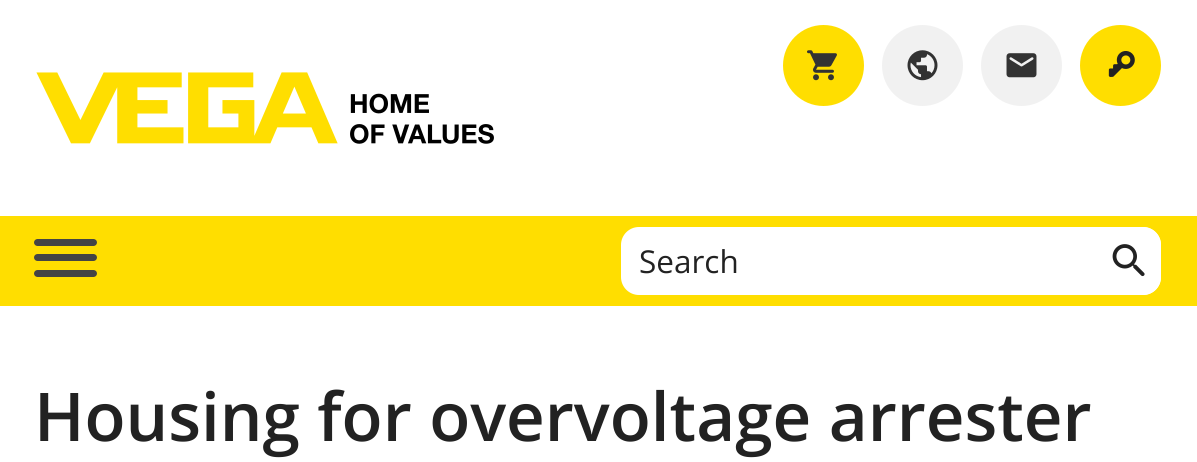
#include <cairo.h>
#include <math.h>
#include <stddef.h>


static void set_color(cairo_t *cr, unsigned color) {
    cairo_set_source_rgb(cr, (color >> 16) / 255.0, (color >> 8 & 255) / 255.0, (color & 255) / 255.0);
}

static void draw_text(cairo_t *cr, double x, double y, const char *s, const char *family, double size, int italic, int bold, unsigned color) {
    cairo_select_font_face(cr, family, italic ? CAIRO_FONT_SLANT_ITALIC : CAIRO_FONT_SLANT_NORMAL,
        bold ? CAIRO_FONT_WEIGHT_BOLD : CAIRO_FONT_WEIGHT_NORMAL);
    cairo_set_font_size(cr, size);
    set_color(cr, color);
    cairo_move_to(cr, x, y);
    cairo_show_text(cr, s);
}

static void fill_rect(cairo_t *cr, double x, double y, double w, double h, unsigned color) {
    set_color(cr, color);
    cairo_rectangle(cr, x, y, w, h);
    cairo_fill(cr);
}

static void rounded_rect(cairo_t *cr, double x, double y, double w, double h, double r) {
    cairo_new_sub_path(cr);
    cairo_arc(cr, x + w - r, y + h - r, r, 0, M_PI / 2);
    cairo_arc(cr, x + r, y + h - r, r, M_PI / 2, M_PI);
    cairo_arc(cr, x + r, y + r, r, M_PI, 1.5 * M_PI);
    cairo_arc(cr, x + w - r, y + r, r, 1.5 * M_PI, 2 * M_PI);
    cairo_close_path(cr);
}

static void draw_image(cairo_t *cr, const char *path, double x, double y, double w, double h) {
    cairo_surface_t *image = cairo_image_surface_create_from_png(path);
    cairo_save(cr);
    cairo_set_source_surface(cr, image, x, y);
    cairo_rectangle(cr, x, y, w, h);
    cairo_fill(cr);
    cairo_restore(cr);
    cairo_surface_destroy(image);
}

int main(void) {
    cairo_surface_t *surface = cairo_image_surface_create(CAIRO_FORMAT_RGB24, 1197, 462);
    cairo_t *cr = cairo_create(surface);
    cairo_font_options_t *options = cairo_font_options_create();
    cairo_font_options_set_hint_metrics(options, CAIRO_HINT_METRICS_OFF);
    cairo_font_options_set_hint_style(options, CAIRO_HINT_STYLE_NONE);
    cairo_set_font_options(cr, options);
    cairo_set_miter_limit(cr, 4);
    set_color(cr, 0xFFFFFF);
    cairo_paint(cr);
    draw_image(cr, "assets/img1.png", 36, 72, 458, 72);
    set_color(cr, 0xFFDE00);
    cairo_arc(cr, 823.5, 65.5, 40.5, 0, 2 * M_PI);
    cairo_fill(cr);
    draw_image(cr, "assets/img2.png", 807, 50, 30, 31);
    set_color(cr, 0xF1F1F1);
    cairo_arc(cr, 922.5, 65.5, 40.5, 0, 2 * M_PI);
    cairo_fill(cr);
    draw_image(cr, "assets/img3.png", 907, 50, 31, 31);
    cairo_arc(cr, 1021.5, 65.5, 40.5, 0, 2 * M_PI);
    cairo_fill(cr);
    draw_image(cr, "assets/img4.png", 1006, 53, 31, 25);
    set_color(cr, 0xFFDE00);
    cairo_arc(cr, 1120.5, 65.5, 40.5, 0, 2 * M_PI);
    cairo_fill(cr);
    draw_image(cr, "assets/img5.png", 1108, 51, 27, 26);
    fill_rect(cr, 0, 216, 1197, 90, 0xFFDE00);
    set_color(cr, 0x444444);
    rounded_rect(cr, 34, 254, 63, 7, 3.5);
    cairo_fill(cr);
    rounded_rect(cr, 34, 239, 63, 7, 3.5);
    cairo_fill(cr);
    rounded_rect(cr, 34, 270, 63, 7, 3.5);
    cairo_fill(cr);
    set_color(cr, 0xFFFFFF);
    rounded_rect(cr, 621, 227, 540, 68, 18);
    cairo_fill(cr);
    draw_text(cr, 639, 273, "Search", "Open Sans", 31.5, 0, 0, 0x222222);
    set_color(cr, 0xFFFFFF);
    cairo_new_path(cr);
    cairo_move_to(cr, 1098, 227);
    cairo_line_to(cr, 1143, 227);
    cairo_curve_to(cr, 1153, 227, 1161, 235, 1161, 245);
    cairo_line_to(cr, 1161, 277);
    cairo_curve_to(cr, 1161, 287, 1153, 295, 1143, 295);
    cairo_line_to(cr, 1098, 295);
    cairo_close_path(cr);
    cairo_fill(cr);
    draw_image(cr, "assets/img6.png", 1112, 244, 33, 33);
    draw_text(cr, 34, 441, "Housing for overvoltage arrester", "Open Sans SemiBold", 67.25, 0, 0, 0x222222);
    cairo_surface_write_to_png(surface, "output.png");
    cairo_font_options_destroy(options);
    cairo_destroy(cr);
    cairo_surface_destroy(surface);
    return 0;
}
